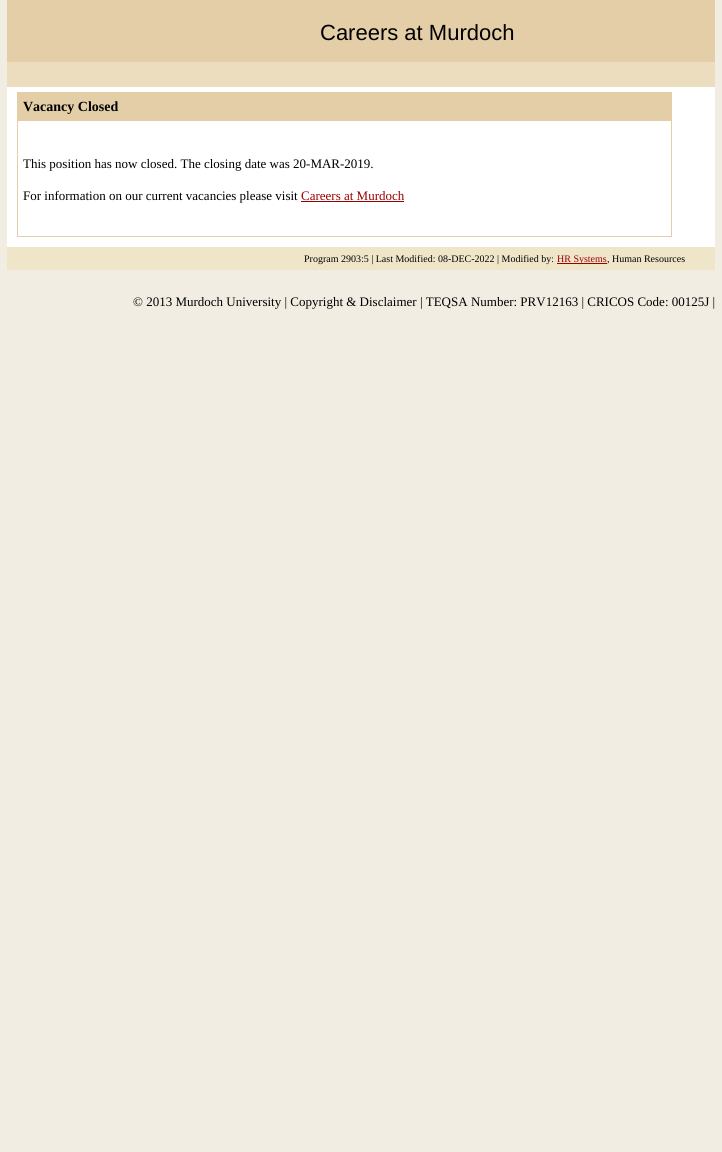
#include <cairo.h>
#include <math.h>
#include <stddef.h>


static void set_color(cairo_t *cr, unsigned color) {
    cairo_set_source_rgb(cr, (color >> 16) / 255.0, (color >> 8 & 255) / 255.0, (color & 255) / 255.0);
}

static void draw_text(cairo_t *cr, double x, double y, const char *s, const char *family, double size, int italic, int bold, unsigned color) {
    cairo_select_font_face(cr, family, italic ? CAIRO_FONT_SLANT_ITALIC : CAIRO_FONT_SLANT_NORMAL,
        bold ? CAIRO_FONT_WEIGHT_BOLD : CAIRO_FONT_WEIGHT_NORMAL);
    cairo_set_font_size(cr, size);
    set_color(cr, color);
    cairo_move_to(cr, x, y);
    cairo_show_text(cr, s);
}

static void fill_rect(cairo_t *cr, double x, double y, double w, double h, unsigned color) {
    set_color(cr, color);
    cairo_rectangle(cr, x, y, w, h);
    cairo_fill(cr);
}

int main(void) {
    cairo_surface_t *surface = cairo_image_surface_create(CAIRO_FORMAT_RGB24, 722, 1152);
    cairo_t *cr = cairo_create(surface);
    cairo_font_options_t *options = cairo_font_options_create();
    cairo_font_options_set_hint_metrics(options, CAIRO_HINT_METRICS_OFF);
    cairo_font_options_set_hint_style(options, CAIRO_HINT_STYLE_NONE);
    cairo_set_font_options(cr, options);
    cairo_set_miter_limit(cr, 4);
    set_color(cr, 0xF1EDE3);
    cairo_paint(cr);
    fill_rect(cr, 7, 87, 708, 160, 0xFFFFFF);
    fill_rect(cr, 7, 0, 708, 62, 0xE3CEA8);
    draw_text(cr, 320, 40, "Careers at Murdoch", "Liberation Sans", 22, 0, 0, 0x000000);
    fill_rect(cr, 7, 62, 708, 25, 0xECDDBE);
    fill_rect(cr, 17, 92, 655, 1, 0xE3CEA8);
    fill_rect(cr, 671, 92, 1, 145, 0xE3CEA8);
    fill_rect(cr, 17, 236, 655, 1, 0xE3CEA8);
    fill_rect(cr, 17, 92, 1, 145, 0xE3CEA8);
    fill_rect(cr, 18, 93, 653, 28, 0xE3CEA8);
    draw_text(cr, 23, 111, "Vacancy Closed", "Liberation Serif", 14, 0, 1, 0x000000);
    draw_text(cr, 23, 168, "This position has now closed. The closing date was 20-MAR-2019.", "Liberation Serif", 13, 0, 0, 0x000000);
    draw_text(cr, 23, 200, "For information on our current vacancies please visit", "Liberation Serif", 13, 0, 0, 0x000000);
    draw_text(cr, 301, 200, "Careers at Murdoch", "Liberation Serif", 13, 0, 0, 0x990000);
    fill_rect(cr, 301, 201, 103, 1, 0x990000);
    fill_rect(cr, 7, 247, 708, 23, 0xEFE6C9);
    draw_text(cr, 304, 262, "Program 2903:5 | Last Modified: 08-DEC-2022 | Modified by:", "Liberation Serif", 10, 0, 0, 0x000000);
    fill_rect(cr, 557, 263, 50, 1, 0x990000);
    draw_text(cr, 557, 262, "HR Systems", "Liberation Serif", 10, 0, 0, 0x990000);
    draw_text(cr, 607, 262, ", Human Resources", "Liberation Serif", 10, 0, 0, 0x000000);
    draw_text(cr, 133, 306, "© 2013 Murdoch University | Copyright & Disclaimer | TEQSA Number: PRV12163 | CRICOS Code: 00125J |", "Liberation Serif", 13, 0, 0, 0x000000);
    cairo_surface_write_to_png(surface, "output.png");
    cairo_font_options_destroy(options);
    cairo_destroy(cr);
    cairo_surface_destroy(surface);
    return 0;
}
